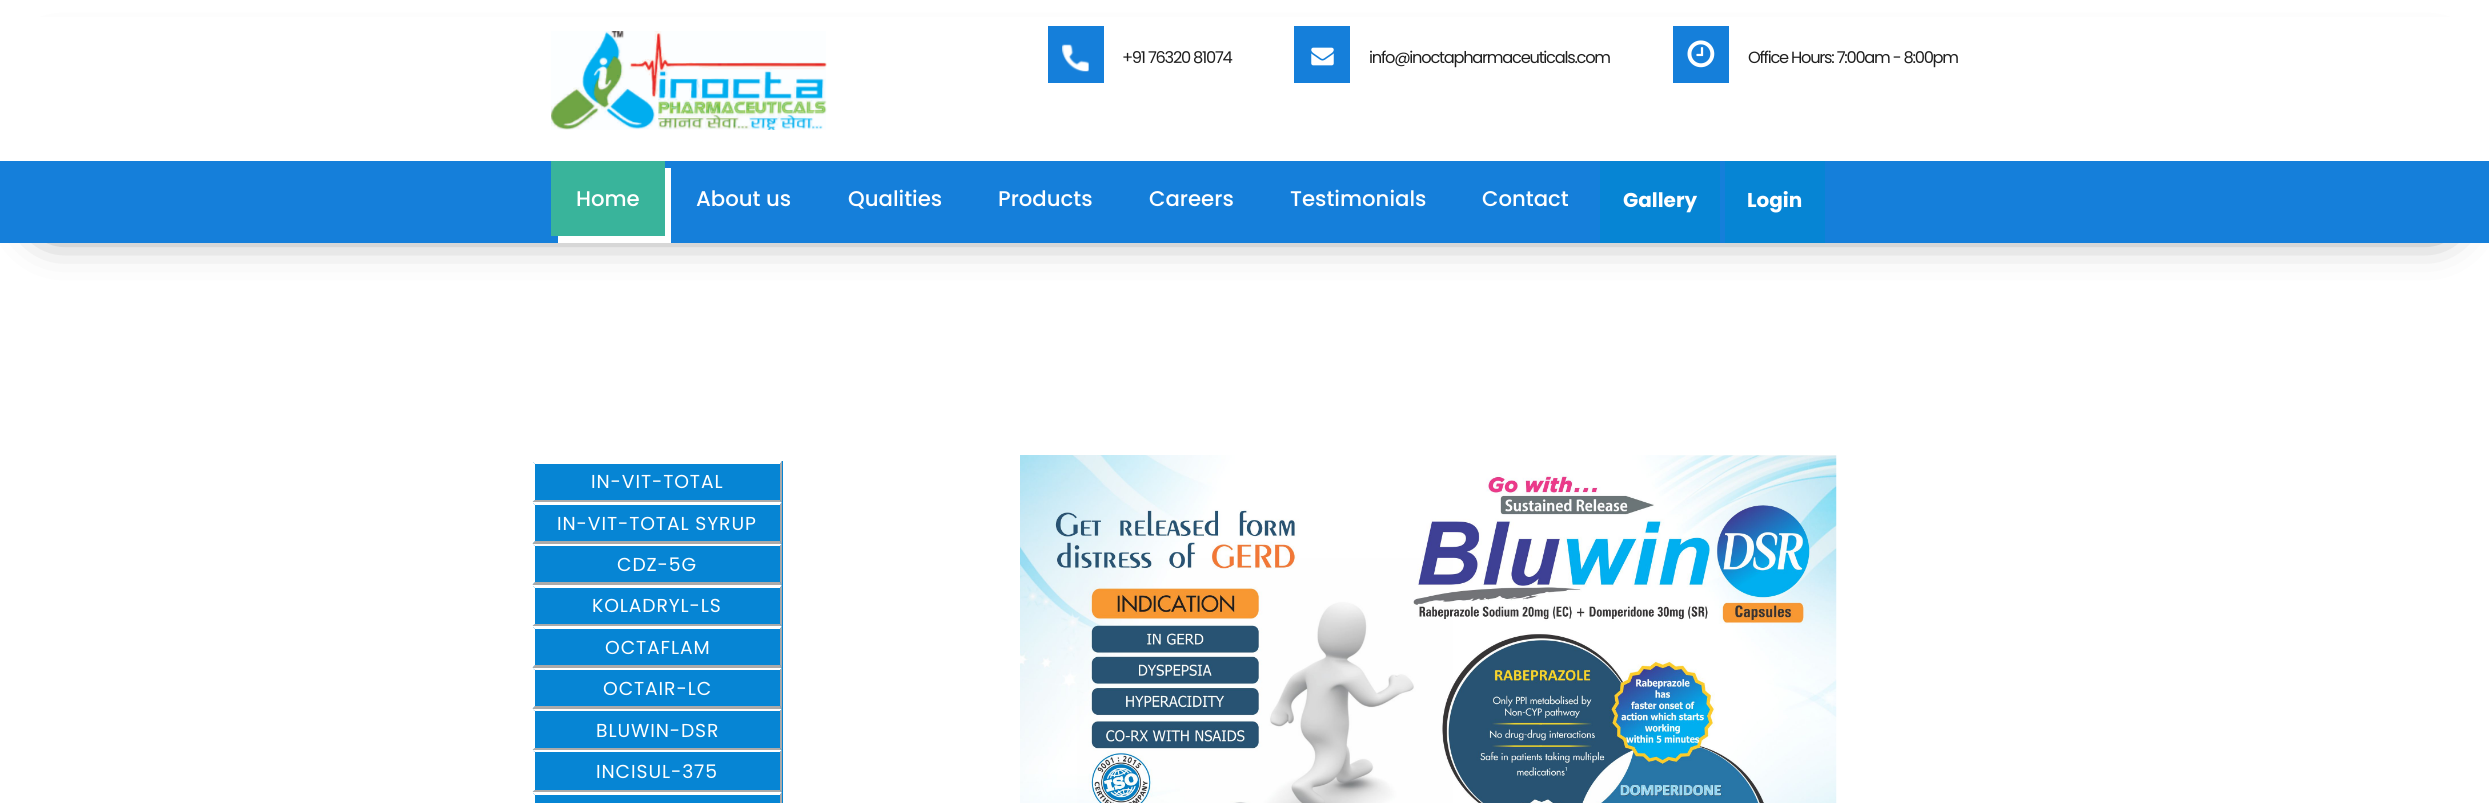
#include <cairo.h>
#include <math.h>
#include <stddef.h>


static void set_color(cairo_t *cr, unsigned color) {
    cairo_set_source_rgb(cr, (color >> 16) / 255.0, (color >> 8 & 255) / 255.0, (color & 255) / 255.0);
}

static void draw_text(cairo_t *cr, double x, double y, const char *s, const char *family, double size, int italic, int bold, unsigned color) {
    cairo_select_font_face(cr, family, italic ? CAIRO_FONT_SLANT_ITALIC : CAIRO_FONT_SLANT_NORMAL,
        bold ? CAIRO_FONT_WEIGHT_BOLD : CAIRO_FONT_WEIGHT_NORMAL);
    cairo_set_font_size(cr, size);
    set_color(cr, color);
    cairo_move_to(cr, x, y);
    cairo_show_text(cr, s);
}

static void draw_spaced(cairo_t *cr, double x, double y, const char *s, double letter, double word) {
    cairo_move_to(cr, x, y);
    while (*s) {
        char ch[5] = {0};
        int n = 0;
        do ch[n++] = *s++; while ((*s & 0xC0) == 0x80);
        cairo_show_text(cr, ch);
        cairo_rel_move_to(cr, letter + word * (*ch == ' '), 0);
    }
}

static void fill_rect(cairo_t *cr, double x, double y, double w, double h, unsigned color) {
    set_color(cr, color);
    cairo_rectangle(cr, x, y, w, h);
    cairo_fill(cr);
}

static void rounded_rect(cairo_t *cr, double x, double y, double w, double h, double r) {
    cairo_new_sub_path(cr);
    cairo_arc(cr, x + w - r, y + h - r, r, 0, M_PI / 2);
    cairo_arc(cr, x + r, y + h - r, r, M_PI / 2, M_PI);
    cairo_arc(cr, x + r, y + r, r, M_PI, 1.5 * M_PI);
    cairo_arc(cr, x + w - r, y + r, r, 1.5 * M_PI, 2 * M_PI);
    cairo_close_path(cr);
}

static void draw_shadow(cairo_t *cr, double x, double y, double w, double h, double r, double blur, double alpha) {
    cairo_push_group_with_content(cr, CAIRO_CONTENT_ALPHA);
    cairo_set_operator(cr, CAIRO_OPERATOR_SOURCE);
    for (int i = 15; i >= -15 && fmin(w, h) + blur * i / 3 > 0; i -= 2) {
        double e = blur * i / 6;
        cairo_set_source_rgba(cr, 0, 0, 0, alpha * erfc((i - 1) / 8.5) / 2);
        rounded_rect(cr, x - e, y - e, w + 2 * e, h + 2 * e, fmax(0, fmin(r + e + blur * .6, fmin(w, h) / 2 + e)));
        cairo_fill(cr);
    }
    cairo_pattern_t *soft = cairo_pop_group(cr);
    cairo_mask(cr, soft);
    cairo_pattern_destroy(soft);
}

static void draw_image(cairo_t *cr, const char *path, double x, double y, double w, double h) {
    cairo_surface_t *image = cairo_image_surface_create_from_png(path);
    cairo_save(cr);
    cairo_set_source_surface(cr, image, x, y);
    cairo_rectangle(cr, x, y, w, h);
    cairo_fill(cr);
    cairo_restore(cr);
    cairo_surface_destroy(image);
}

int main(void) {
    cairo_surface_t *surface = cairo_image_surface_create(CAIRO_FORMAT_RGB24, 2489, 803);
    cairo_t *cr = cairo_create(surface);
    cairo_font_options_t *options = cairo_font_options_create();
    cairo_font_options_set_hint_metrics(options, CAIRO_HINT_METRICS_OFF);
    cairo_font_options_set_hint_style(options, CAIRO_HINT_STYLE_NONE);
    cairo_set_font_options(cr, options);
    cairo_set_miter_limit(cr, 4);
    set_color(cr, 0xFFFFFF);
    cairo_paint(cr);
    set_color(cr, 0x000000);
    draw_shadow(cr, 50, 75, 2390, 143, 0, 25, 1);
    fill_rect(cr, 0, 17, 2489, 144, 0xFFFFFF);
    draw_image(cr, "assets/img1.png", 551, 31, 276, 99);
    fill_rect(cr, 1048, 26, 56, 57, 0x157FDA);
    draw_image(cr, "assets/img2.png", 1062, 44, 27, 28);
    cairo_select_font_face(cr, "Poppins", CAIRO_FONT_SLANT_NORMAL, CAIRO_FONT_WEIGHT_NORMAL);
    cairo_set_font_size(cr, 16.25);
    set_color(cr, 0x1F1F1F);
    draw_spaced(cr, 1122, 63, "+91 76320 81074", -1.25, 0);
    fill_rect(cr, 1294, 26, 56, 57, 0x157FDA);
    draw_image(cr, "assets/img3.png", 1311, 47, 23, 19);
    set_color(cr, 0x1F1F1F);
    draw_spaced(cr, 1369, 63, "info@inoctapharmaceuticals.com", -1.25, 0);
    fill_rect(cr, 1673, 26, 56, 57, 0x157FDA);
    draw_image(cr, "assets/img4.png", 1687, 40, 28, 28);
    set_color(cr, 0x1F1F1F);
    draw_spaced(cr, 1748, 63, "Office Hours: 7:00am - 8:00pm", -1.25, 0);
    fill_rect(cr, 0, 161, 2489, 82, 0x157FDA);
    set_color(cr, 0xFFFFFF);
    cairo_new_path(cr);
    cairo_move_to(cr, 558, 236);
    cairo_line_to(cr, 558, 243);
    cairo_line_to(cr, 671, 243);
    cairo_line_to(cr, 671, 168);
    cairo_line_to(cr, 665, 168);
    cairo_line_to(cr, 665, 236);
    cairo_close_path(cr);
    cairo_fill(cr);
    fill_rect(cr, 551, 161, 114, 75, 0x39B49B);
    draw_text(cr, 576, 206, "Home", "Poppins Medium", 21.25, 0, 0, 0xFFFFFF);
    draw_text(cr, 696, 206, "About us", "Poppins Medium", 21.25, 0, 0, 0xFFFFFF);
    draw_text(cr, 848, 206, "Qualities", "Poppins Medium", 21.25, 0, 0, 0xFFFFFF);
    draw_text(cr, 998, 206, "Products", "Poppins Medium", 21.25, 0, 0, 0xFFFFFF);
    draw_text(cr, 1149, 206, "Careers", "Poppins Medium", 21.25, 0, 0, 0xFFFFFF);
    draw_text(cr, 1290, 206, "Testimonials", "Poppins Medium", 21.25, 0, 0, 0xFFFFFF);
    draw_text(cr, 1482, 206, "Contact", "Poppins Medium", 21.25, 0, 0, 0xFFFFFF);
    fill_rect(cr, 1600, 161, 120, 82, 0x0685D4);
    draw_text(cr, 1623, 207, "Gallery", "Poppins", 20, 0, 1, 0xFFFFFF);
    fill_rect(cr, 1725, 161, 100, 82, 0x0685D4);
    draw_text(cr, 1747, 207, "Login", "Poppins", 20, 0, 1, 0xFFFFFF);
    fill_rect(cr, 533, 461, 250, 342, 0x0685D4);
    set_color(cr, 0xFFFFFF);
    cairo_new_path(cr);
    cairo_move_to(cr, 532, 461);
    cairo_line_to(cr, 782, 461);
    cairo_line_to(cr, 780, 464);
    cairo_line_to(cr, 535, 464);
    cairo_close_path(cr);
    cairo_fill(cr);
    set_color(cr, 0xAAAAAA);
    cairo_new_path(cr);
    cairo_move_to(cr, 782, 461);
    cairo_line_to(cr, 782, 502);
    cairo_line_to(cr, 780, 500);
    cairo_line_to(cr, 780, 464);
    cairo_close_path(cr);
    cairo_fill(cr);
    cairo_new_path(cr);
    cairo_move_to(cr, 782, 502);
    cairo_line_to(cr, 532, 502);
    cairo_line_to(cr, 535, 500);
    cairo_line_to(cr, 780, 500);
    cairo_close_path(cr);
    cairo_fill(cr);
    set_color(cr, 0xFFFFFF);
    cairo_new_path(cr);
    cairo_move_to(cr, 532, 502);
    cairo_line_to(cr, 532, 461);
    cairo_line_to(cr, 535, 464);
    cairo_line_to(cr, 535, 500);
    cairo_close_path(cr);
    cairo_fill(cr);
    cairo_select_font_face(cr, "Poppins", CAIRO_FONT_SLANT_NORMAL, CAIRO_FONT_WEIGHT_NORMAL);
    cairo_set_font_size(cr, 18.75);
    draw_spaced(cr, 591, 488, "IN-VIT-TOTAL", 0.9, 0);
    cairo_new_path(cr);
    cairo_move_to(cr, 532, 502);
    cairo_line_to(cr, 782, 502);
    cairo_line_to(cr, 780, 505);
    cairo_line_to(cr, 535, 505);
    cairo_close_path(cr);
    cairo_fill(cr);
    set_color(cr, 0xAAAAAA);
    cairo_new_path(cr);
    cairo_move_to(cr, 782, 502);
    cairo_line_to(cr, 782, 544);
    cairo_line_to(cr, 780, 541);
    cairo_line_to(cr, 780, 505);
    cairo_close_path(cr);
    cairo_fill(cr);
    cairo_new_path(cr);
    cairo_move_to(cr, 782, 544);
    cairo_line_to(cr, 532, 544);
    cairo_line_to(cr, 535, 541);
    cairo_line_to(cr, 780, 541);
    cairo_close_path(cr);
    cairo_fill(cr);
    set_color(cr, 0xFFFFFF);
    cairo_new_path(cr);
    cairo_move_to(cr, 532, 544);
    cairo_line_to(cr, 532, 502);
    cairo_line_to(cr, 535, 505);
    cairo_line_to(cr, 535, 541);
    cairo_close_path(cr);
    cairo_fill(cr);
    draw_spaced(cr, 557, 530, "IN-VIT-TOTAL SYRUP", 0.9, 0);
    cairo_new_path(cr);
    cairo_move_to(cr, 532, 544);
    cairo_line_to(cr, 782, 544);
    cairo_line_to(cr, 780, 546);
    cairo_line_to(cr, 535, 546);
    cairo_close_path(cr);
    cairo_fill(cr);
    set_color(cr, 0xAAAAAA);
    cairo_new_path(cr);
    cairo_move_to(cr, 782, 544);
    cairo_line_to(cr, 782, 585);
    cairo_line_to(cr, 780, 582);
    cairo_line_to(cr, 780, 546);
    cairo_close_path(cr);
    cairo_fill(cr);
    cairo_new_path(cr);
    cairo_move_to(cr, 782, 585);
    cairo_line_to(cr, 532, 585);
    cairo_line_to(cr, 535, 582);
    cairo_line_to(cr, 780, 582);
    cairo_close_path(cr);
    cairo_fill(cr);
    set_color(cr, 0xFFFFFF);
    cairo_new_path(cr);
    cairo_move_to(cr, 532, 585);
    cairo_line_to(cr, 532, 544);
    cairo_line_to(cr, 535, 546);
    cairo_line_to(cr, 535, 582);
    cairo_close_path(cr);
    cairo_fill(cr);
    draw_spaced(cr, 617, 571, "CDZ-5G", 0.9, 0);
    cairo_new_path(cr);
    cairo_move_to(cr, 532, 585);
    cairo_line_to(cr, 782, 585);
    cairo_line_to(cr, 780, 588);
    cairo_line_to(cr, 535, 588);
    cairo_close_path(cr);
    cairo_fill(cr);
    set_color(cr, 0xAAAAAA);
    cairo_new_path(cr);
    cairo_move_to(cr, 782, 585);
    cairo_line_to(cr, 782, 626);
    cairo_line_to(cr, 780, 624);
    cairo_line_to(cr, 780, 588);
    cairo_close_path(cr);
    cairo_fill(cr);
    cairo_new_path(cr);
    cairo_move_to(cr, 782, 626);
    cairo_line_to(cr, 532, 626);
    cairo_line_to(cr, 535, 624);
    cairo_line_to(cr, 780, 624);
    cairo_close_path(cr);
    cairo_fill(cr);
    set_color(cr, 0xFFFFFF);
    cairo_new_path(cr);
    cairo_move_to(cr, 532, 626);
    cairo_line_to(cr, 532, 585);
    cairo_line_to(cr, 535, 588);
    cairo_line_to(cr, 535, 624);
    cairo_close_path(cr);
    cairo_fill(cr);
    draw_spaced(cr, 592, 612, "KOLADRYL-LS", 0.9, 0);
    cairo_new_path(cr);
    cairo_move_to(cr, 532, 626);
    cairo_line_to(cr, 782, 626);
    cairo_line_to(cr, 780, 629);
    cairo_line_to(cr, 535, 629);
    cairo_close_path(cr);
    cairo_fill(cr);
    set_color(cr, 0xAAAAAA);
    cairo_new_path(cr);
    cairo_move_to(cr, 782, 626);
    cairo_line_to(cr, 782, 668);
    cairo_line_to(cr, 780, 665);
    cairo_line_to(cr, 780, 629);
    cairo_close_path(cr);
    cairo_fill(cr);
    cairo_new_path(cr);
    cairo_move_to(cr, 782, 668);
    cairo_line_to(cr, 532, 668);
    cairo_line_to(cr, 535, 665);
    cairo_line_to(cr, 780, 665);
    cairo_close_path(cr);
    cairo_fill(cr);
    set_color(cr, 0xFFFFFF);
    cairo_new_path(cr);
    cairo_move_to(cr, 532, 668);
    cairo_line_to(cr, 532, 626);
    cairo_line_to(cr, 535, 629);
    cairo_line_to(cr, 535, 665);
    cairo_close_path(cr);
    cairo_fill(cr);
    draw_spaced(cr, 605, 654, "OCTAFLAM", 0.9, 0);
    cairo_new_path(cr);
    cairo_move_to(cr, 532, 668);
    cairo_line_to(cr, 782, 668);
    cairo_line_to(cr, 780, 670);
    cairo_line_to(cr, 535, 670);
    cairo_close_path(cr);
    cairo_fill(cr);
    set_color(cr, 0xAAAAAA);
    cairo_new_path(cr);
    cairo_move_to(cr, 782, 668);
    cairo_line_to(cr, 782, 709);
    cairo_line_to(cr, 780, 706);
    cairo_line_to(cr, 780, 670);
    cairo_close_path(cr);
    cairo_fill(cr);
    cairo_new_path(cr);
    cairo_move_to(cr, 782, 709);
    cairo_line_to(cr, 532, 709);
    cairo_line_to(cr, 535, 706);
    cairo_line_to(cr, 780, 706);
    cairo_close_path(cr);
    cairo_fill(cr);
    set_color(cr, 0xFFFFFF);
    cairo_new_path(cr);
    cairo_move_to(cr, 532, 709);
    cairo_line_to(cr, 532, 668);
    cairo_line_to(cr, 535, 670);
    cairo_line_to(cr, 535, 706);
    cairo_close_path(cr);
    cairo_fill(cr);
    draw_spaced(cr, 603, 695, "OCTAIR-LC", 0.9, 0);
    cairo_new_path(cr);
    cairo_move_to(cr, 532, 709);
    cairo_line_to(cr, 782, 709);
    cairo_line_to(cr, 780, 711);
    cairo_line_to(cr, 535, 711);
    cairo_close_path(cr);
    cairo_fill(cr);
    set_color(cr, 0xAAAAAA);
    cairo_new_path(cr);
    cairo_move_to(cr, 782, 709);
    cairo_line_to(cr, 782, 750);
    cairo_line_to(cr, 780, 748);
    cairo_line_to(cr, 780, 711);
    cairo_close_path(cr);
    cairo_fill(cr);
    cairo_new_path(cr);
    cairo_move_to(cr, 782, 750);
    cairo_line_to(cr, 532, 750);
    cairo_line_to(cr, 535, 748);
    cairo_line_to(cr, 780, 748);
    cairo_close_path(cr);
    cairo_fill(cr);
    set_color(cr, 0xFFFFFF);
    cairo_new_path(cr);
    cairo_move_to(cr, 532, 750);
    cairo_line_to(cr, 532, 709);
    cairo_line_to(cr, 535, 711);
    cairo_line_to(cr, 535, 748);
    cairo_close_path(cr);
    cairo_fill(cr);
    draw_spaced(cr, 596, 737, "BLUWIN-DSR", 0.9, 0);
    cairo_new_path(cr);
    cairo_move_to(cr, 532, 750);
    cairo_line_to(cr, 782, 750);
    cairo_line_to(cr, 780, 752);
    cairo_line_to(cr, 535, 752);
    cairo_close_path(cr);
    cairo_fill(cr);
    set_color(cr, 0xAAAAAA);
    cairo_new_path(cr);
    cairo_move_to(cr, 782, 750);
    cairo_line_to(cr, 782, 792);
    cairo_line_to(cr, 780, 790);
    cairo_line_to(cr, 780, 752);
    cairo_close_path(cr);
    cairo_fill(cr);
    cairo_new_path(cr);
    cairo_move_to(cr, 782, 792);
    cairo_line_to(cr, 532, 792);
    cairo_line_to(cr, 535, 790);
    cairo_line_to(cr, 780, 790);
    cairo_close_path(cr);
    cairo_fill(cr);
    set_color(cr, 0xFFFFFF);
    cairo_new_path(cr);
    cairo_move_to(cr, 532, 792);
    cairo_line_to(cr, 532, 750);
    cairo_line_to(cr, 535, 752);
    cairo_line_to(cr, 535, 790);
    cairo_close_path(cr);
    cairo_fill(cr);
    draw_spaced(cr, 596, 778, "INCISUL-375", 0.9, 0);
    cairo_new_path(cr);
    cairo_move_to(cr, 532, 792);
    cairo_line_to(cr, 782, 792);
    cairo_line_to(cr, 780, 795);
    cairo_line_to(cr, 535, 795);
    cairo_close_path(cr);
    cairo_fill(cr);
    set_color(cr, 0xAAAAAA);
    cairo_new_path(cr);
    cairo_move_to(cr, 782, 792);
    cairo_line_to(cr, 782, 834);
    cairo_line_to(cr, 780, 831);
    cairo_line_to(cr, 780, 795);
    cairo_close_path(cr);
    cairo_fill(cr);
    set_color(cr, 0xFFFFFF);
    cairo_new_path(cr);
    cairo_move_to(cr, 532, 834);
    cairo_line_to(cr, 532, 792);
    cairo_line_to(cr, 535, 795);
    cairo_line_to(cr, 535, 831);
    cairo_close_path(cr);
    cairo_fill(cr);
    draw_image(cr, "assets/img5.png", 1020, 455, 817, 348);
    cairo_surface_write_to_png(surface, "output.png");
    cairo_font_options_destroy(options);
    cairo_destroy(cr);
    cairo_surface_destroy(surface);
    return 0;
}
